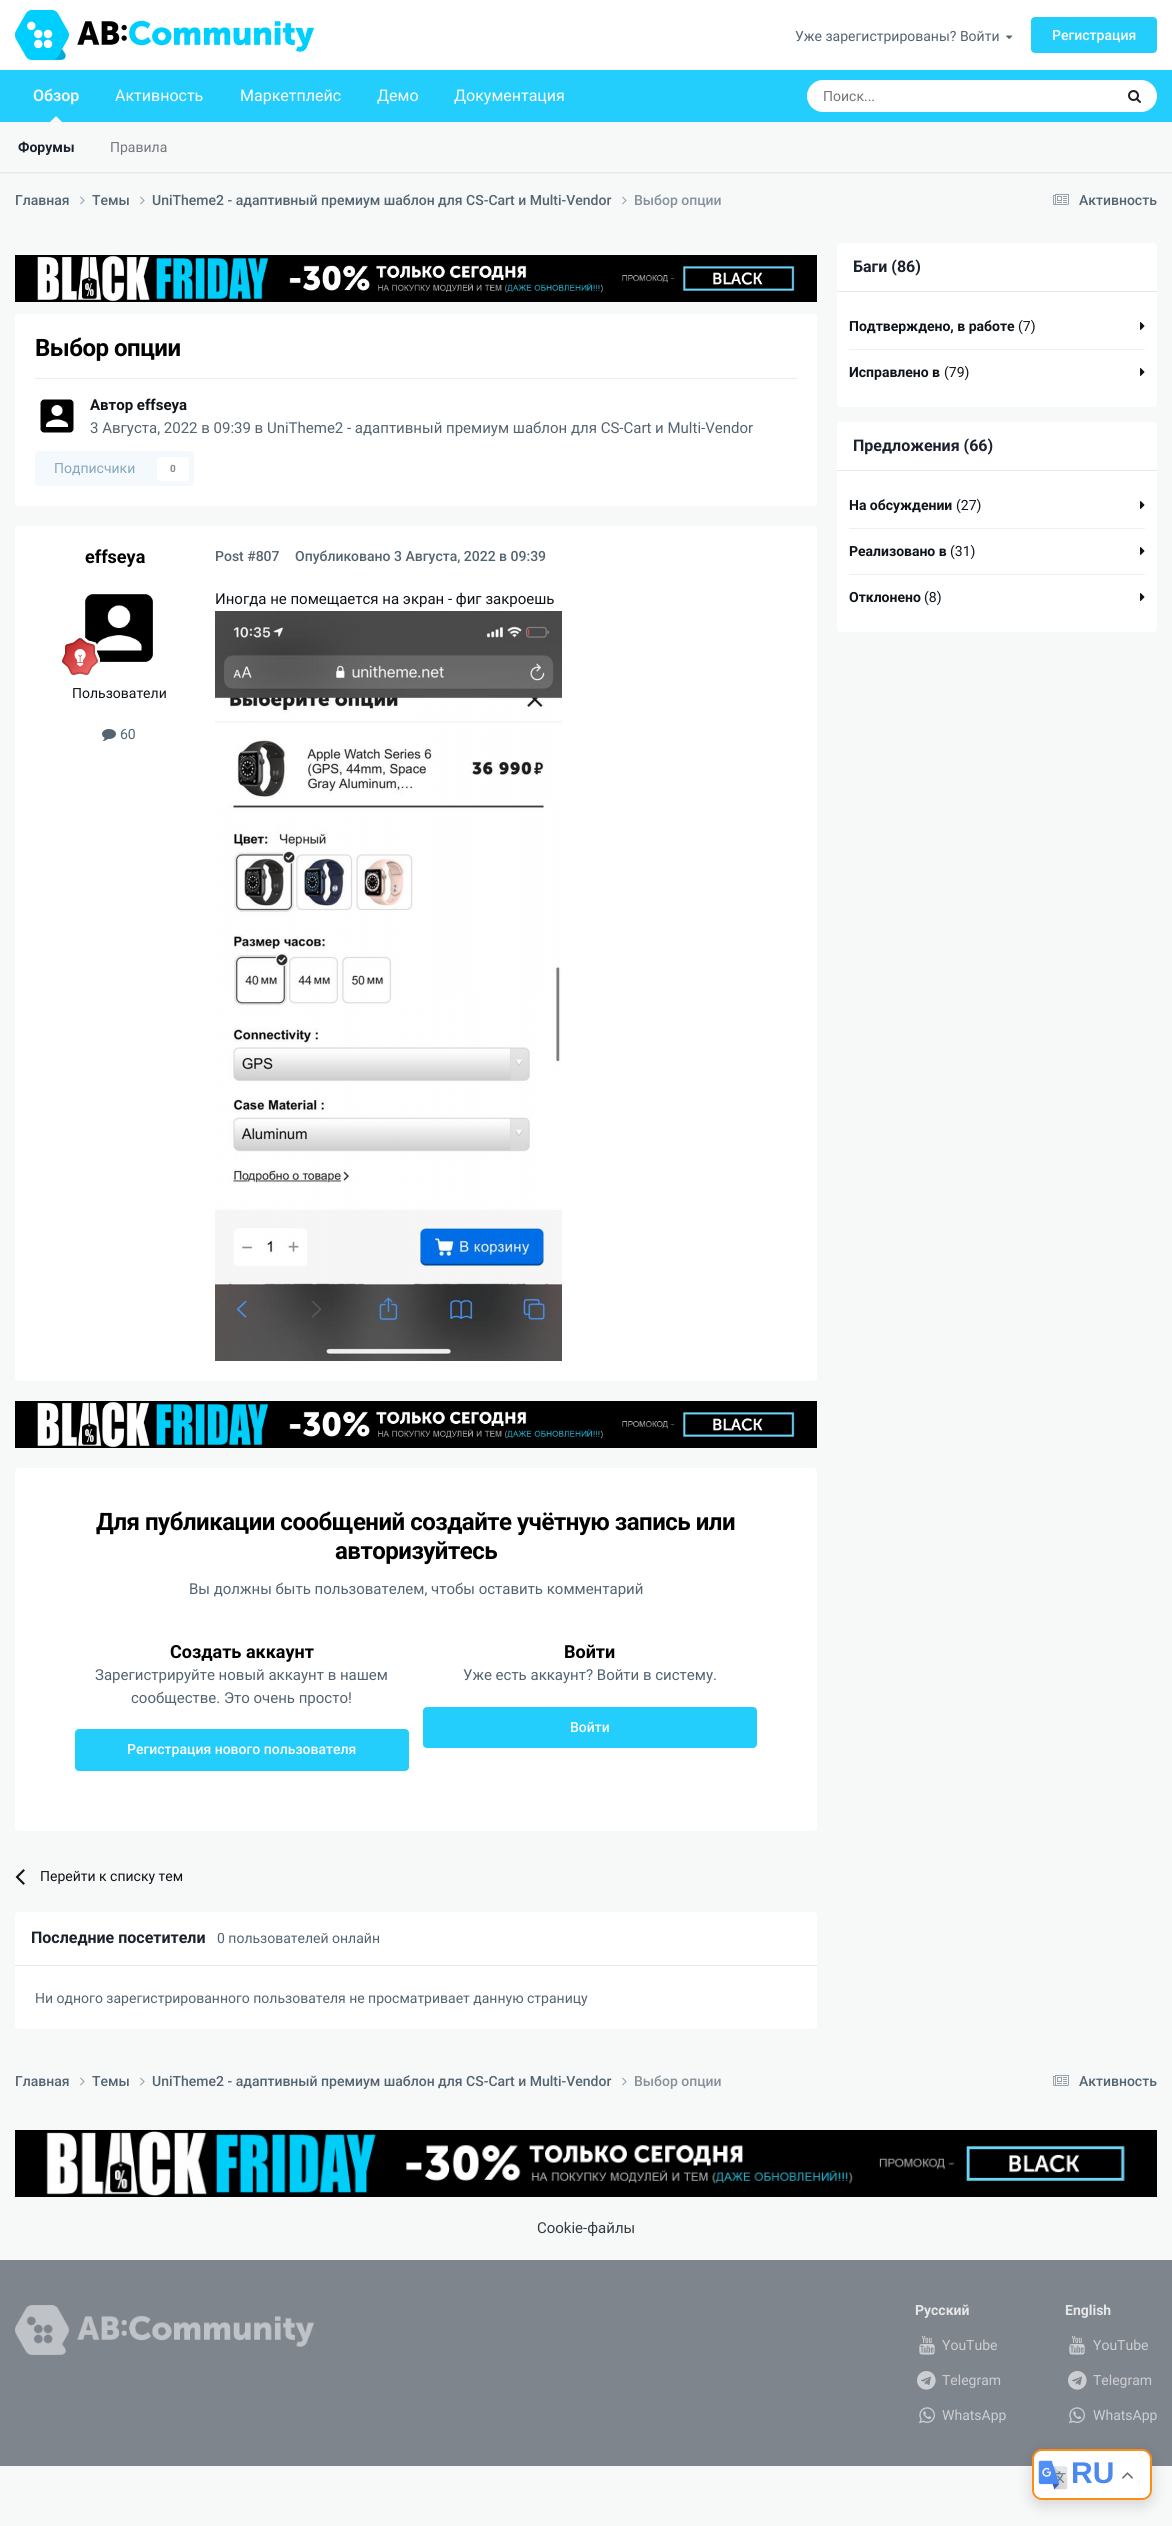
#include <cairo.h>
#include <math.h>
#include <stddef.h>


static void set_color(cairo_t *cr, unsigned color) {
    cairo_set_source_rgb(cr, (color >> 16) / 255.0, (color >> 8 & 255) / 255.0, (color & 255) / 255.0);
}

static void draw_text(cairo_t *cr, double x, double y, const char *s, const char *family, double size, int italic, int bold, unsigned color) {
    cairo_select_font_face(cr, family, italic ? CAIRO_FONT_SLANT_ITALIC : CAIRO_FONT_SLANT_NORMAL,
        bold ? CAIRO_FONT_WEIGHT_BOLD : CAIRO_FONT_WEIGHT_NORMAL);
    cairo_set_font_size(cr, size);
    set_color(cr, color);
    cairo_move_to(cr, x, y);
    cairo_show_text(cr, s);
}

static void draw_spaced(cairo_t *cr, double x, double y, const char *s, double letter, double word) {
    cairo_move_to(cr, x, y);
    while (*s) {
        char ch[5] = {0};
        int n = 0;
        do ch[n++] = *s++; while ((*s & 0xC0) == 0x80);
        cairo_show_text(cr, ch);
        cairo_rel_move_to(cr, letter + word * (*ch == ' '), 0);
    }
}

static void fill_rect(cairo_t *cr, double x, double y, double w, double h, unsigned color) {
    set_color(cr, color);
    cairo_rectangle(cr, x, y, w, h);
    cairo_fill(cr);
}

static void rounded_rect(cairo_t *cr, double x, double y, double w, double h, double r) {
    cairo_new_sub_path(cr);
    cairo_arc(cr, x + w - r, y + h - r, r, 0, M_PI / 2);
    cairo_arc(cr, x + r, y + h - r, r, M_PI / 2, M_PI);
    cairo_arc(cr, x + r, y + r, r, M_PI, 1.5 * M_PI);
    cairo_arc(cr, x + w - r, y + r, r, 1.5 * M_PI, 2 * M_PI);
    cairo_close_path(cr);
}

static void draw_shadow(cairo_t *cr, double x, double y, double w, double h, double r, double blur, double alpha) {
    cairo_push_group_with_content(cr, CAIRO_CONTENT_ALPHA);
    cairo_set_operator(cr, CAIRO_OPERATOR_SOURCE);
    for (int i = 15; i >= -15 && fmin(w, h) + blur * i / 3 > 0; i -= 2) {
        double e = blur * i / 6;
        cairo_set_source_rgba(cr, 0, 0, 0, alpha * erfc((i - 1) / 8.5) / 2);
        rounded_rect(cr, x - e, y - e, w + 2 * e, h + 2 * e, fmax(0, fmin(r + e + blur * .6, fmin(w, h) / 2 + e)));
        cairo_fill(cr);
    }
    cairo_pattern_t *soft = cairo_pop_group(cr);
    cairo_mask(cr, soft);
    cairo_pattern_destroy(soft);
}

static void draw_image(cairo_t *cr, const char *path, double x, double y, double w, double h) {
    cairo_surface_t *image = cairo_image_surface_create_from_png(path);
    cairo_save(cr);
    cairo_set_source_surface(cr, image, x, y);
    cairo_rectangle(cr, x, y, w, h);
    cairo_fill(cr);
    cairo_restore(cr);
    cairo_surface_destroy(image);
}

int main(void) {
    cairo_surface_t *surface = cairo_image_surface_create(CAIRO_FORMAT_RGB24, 1172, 2526);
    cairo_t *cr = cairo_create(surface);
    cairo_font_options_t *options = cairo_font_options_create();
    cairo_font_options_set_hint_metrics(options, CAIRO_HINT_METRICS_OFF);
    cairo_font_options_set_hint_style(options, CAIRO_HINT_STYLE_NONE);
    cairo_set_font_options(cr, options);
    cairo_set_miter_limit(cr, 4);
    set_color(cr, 0xF7F9F9);
    cairo_paint(cr);
    fill_rect(cr, 0, 0, 1172, 70, 0xFFFFFF);
    draw_image(cr, "assets/img1.png", 15, 10, 299, 50);
    draw_text(cr, 795, 41, "Уже зарегистрированы? Войти", "Roboto", 14, 0, 0, 0x536471);
    draw_image(cr, "assets/img2.png", 1006, 35, 7, 4);
    set_color(cr, 0x23CDFC);
    rounded_rect(cr, 1031, 17, 126, 36, 4);
    cairo_fill(cr);
    draw_text(cr, 1052, 40, "Регистрация", "Roboto Medium", 14, 0, 0, 0xFFFFFF);
    fill_rect(cr, 0, 70, 1172, 52, 0x23CDFC);
    draw_text(cr, 33, 101, "Обзор", "Roboto SemiBold", 16, 0, 0, 0xF7F9F9);
    cairo_save(cr);
    cairo_rectangle(cr, 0, 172, 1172, 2);
    cairo_clip(cr);
    set_color(cr, 0x000000);
    draw_shadow(cr, 0, 123, 1172, 50, 0, 1, 0.1);
    cairo_restore(cr);
    cairo_new_path(cr);
    cairo_move_to(cr, 62, 122);
    cairo_line_to(cr, 50, 122);
    cairo_line_to(cr, 56, 116);
    cairo_close_path(cr);
    cairo_fill(cr);
    draw_text(cr, 18, 152, "Форумы", "Roboto", 14, 0, 1, 0x1A202C);
    draw_text(cr, 110, 152, "Правила", "Roboto", 14, 0, 0, 0x72777E);
    draw_text(cr, 115, 101, "Активность", "Roboto", 16, 0, 0, 0xFFFFFF);
    draw_text(cr, 240, 101, "Маркетплейс", "Roboto", 16, 0, 0, 0xFFFFFF);
    draw_text(cr, 377, 101, "Демо", "Roboto", 16, 0, 0, 0xFFFFFF);
    draw_text(cr, 454, 101, "Документация", "Roboto", 16, 0, 0, 0xFFFFFF);
    rounded_rect(cr, 807, 80, 350, 32, 16);
    cairo_fill(cr);
    draw_text(cr, 823, 101, "Поиск...", "Roboto", 14, 0, 0, 0x757575);
    draw_image(cr, "assets/img3.png", 1128, 90, 13, 13);
    draw_text(cr, 15, 205, "Главная", "Roboto Medium", 14, 0, 0, 0x536471);
    draw_image(cr, "assets/img4.png", 80, 196, 5, 9);
    draw_text(cr, 92, 205, "Темы", "Roboto Medium", 14, 0, 0, 0x536471);
    draw_image(cr, "assets/img4.png", 140, 196, 5, 9);
    draw_text(cr, 152, 205, "UniTheme2 - адаптивный премиум шаблон для CS-Cart и Multi-Vendor", "Roboto Medium", 14, 0, 0, 0x536471);
    draw_image(cr, "assets/img4.png", 622, 196, 5, 9);
    draw_text(cr, 634, 205, "Выбор опции", "Roboto Medium", 14, 0, 0, 0x84919A);
    draw_image(cr, "assets/img5.png", 1053, 194, 16, 11);
    draw_text(cr, 1079, 205, "Активность", "Roboto Medium", 14, 0, 0, 0x536471);
    draw_image(cr, "assets/img6.png", 15, 255, 802, 47);
    set_color(cr, 0xFFFFFF);
    rounded_rect(cr, 15, 314, 802, 192, 4);
    cairo_fill(cr);
    cairo_select_font_face(cr, "Roboto", CAIRO_FONT_SLANT_NORMAL, CAIRO_FONT_WEIGHT_BOLD);
    cairo_set_font_size(cr, 24);
    set_color(cr, 0x000000);
    draw_spaced(cr, 35, 356, "Выбор опции", -0.48, 0);
    fill_rect(cr, 35, 378, 762, 1, 0xECECED);
    draw_image(cr, "assets/img7.png", 40, 399, 34, 34);
    draw_text(cr, 90, 410, "Автор effseya", "Roboto", 15, 0, 1, 0x0F1419);
    draw_text(cr, 90, 433, "3 Августа, 2022 в 09:39 в UniTheme2 - адаптивный премиум шаблон для CS-Cart и Multi-Vendor", "Roboto", 15, 0, 0, 0x536471);
    set_color(cr, 0xF4F9FD);
    rounded_rect(cr, 35, 451, 159, 35, 4);
    cairo_fill(cr);
    draw_text(cr, 54, 473, "Подписчики", "Roboto", 14, 0, 0, 0x87A6BC);
    set_color(cr, 0xFFFFFF);
    rounded_rect(cr, 157, 457, 32, 24, 4);
    cairo_fill(cr);
    draw_text(cr, 170, 472, "0", "Roboto", 10, 0, 1, 0x878A8C);
    set_color(cr, 0xFFFFFF);
    rounded_rect(cr, 15, 526, 802, 855, 4);
    cairo_fill(cr);
    draw_text(cr, 85, 563, "effseya", "Roboto", 18, 0, 1, 0x000000);
    draw_image(cr, "assets/img9.png", 85, 594, 68, 68);
    draw_image(cr, "assets/img8.png", 62, 637, 38, 38);
    draw_text(cr, 72, 698, "Пользователи", "Roboto", 14, 0, 0, 0x0F1419);
    draw_image(cr, "assets/img10.png", 102, 729, 14, 12);
    draw_text(cr, 120, 739, "60", "Roboto", 14, 0, 0, 0x536471);
    draw_text(cr, 215, 561, "Post #807", "Roboto Medium", 14, 0, 0, 0x536471);
    draw_text(cr, 295, 561, "Опубликовано 3 Августа, 2022 в 09:39", "Roboto Medium", 14, 0, 0, 0x536471);
    draw_text(cr, 215, 604, "Иногда не помещается на экран - фиг закроешь", "Roboto", 15, 0, 0, 0x0F1419);
    draw_image(cr, "assets/img11.png", 215, 611, 347, 750);
    draw_image(cr, "assets/img6.png", 15, 1401, 802, 47);
    set_color(cr, 0xFFFFFF);
    rounded_rect(cr, 15, 1468, 802, 363, 4);
    cairo_fill(cr);
    cairo_select_font_face(cr, "Roboto", CAIRO_FONT_SLANT_NORMAL, CAIRO_FONT_WEIGHT_BOLD);
    cairo_set_font_size(cr, 24);
    set_color(cr, 0x000000);
    draw_spaced(cr, 96, 1530, "Для публикации сообщений создайте учётную запись или", -0.48, 0);
    draw_spaced(cr, 335, 1559, "авторизуйтесь", -0.48, 0);
    draw_text(cr, 189, 1594, "Вы должны быть пользователем, чтобы оставить комментарий", "Roboto", 15, 0, 0, 0x536471);
    draw_text(cr, 170, 1658, "Создать аккаунт", "Roboto", 18, 0, 1, 0x000000);
    draw_text(cr, 95, 1680, "Зарегистрируйте новый аккаунт в нашем", "Roboto", 15, 0, 0, 0x536471);
    draw_text(cr, 131, 1703, "сообществе. Это очень просто!", "Roboto", 15, 0, 0, 0x536471);
    set_color(cr, 0x23CDFC);
    rounded_rect(cr, 75, 1729, 334, 42, 4);
    cairo_fill(cr);
    draw_text(cr, 127, 1754, "Регистрация нового пользователя", "Roboto Medium", 14, 0, 0, 0xFFFFFF);
    draw_text(cr, 564, 1658, "Войти", "Roboto", 18, 0, 1, 0x000000);
    draw_text(cr, 463, 1680, "Уже есть аккаунт? Войти в систему.", "Roboto", 15, 0, 0, 0x536471);
    set_color(cr, 0x23CDFC);
    rounded_rect(cr, 423, 1707, 334, 41, 4);
    cairo_fill(cr);
    draw_text(cr, 570, 1732, "Войти", "Roboto Medium", 14, 0, 0, 0xFFFFFF);
    draw_image(cr, "assets/img12.png", 15, 1869, 10, 16);
    draw_text(cr, 40, 1881, "Перейти к списку тем", "Roboto", 14, 0, 0, 0x0F1419);
    set_color(cr, 0xFFFFFF);
    rounded_rect(cr, 15, 1912, 802, 117, 4);
    cairo_fill(cr);
    fill_rect(cr, 15, 1965, 802, 1, 0xE5E8EA);
    draw_text(cr, 31, 1943, "Последние посетители", "Roboto", 16, 0, 1, 0x1A202C);
    draw_text(cr, 217, 1943, "0 пользователей онлайн", "Roboto", 14, 0, 0, 0x536471);
    draw_text(cr, 35, 2003, "Ни одного зарегистрированного пользователя не просматривает данную страницу", "Roboto", 14, 0, 0, 0x536471);
    set_color(cr, 0xFFFFFF);
    rounded_rect(cr, 837, 243, 320, 164, 4);
    cairo_fill(cr);
    fill_rect(cr, 837, 291, 320, 1, 0xE5E8EA);
    draw_text(cr, 853, 272, "Баги (86)", "Roboto", 16, 0, 1, 0x1A202C);
    fill_rect(cr, 849, 349, 296, 1, 0xEEF0F1);
    draw_text(cr, 849, 331, "Подтверждено, в работе", "Roboto", 14, 0, 1, 0x0F1419);
    draw_text(cr, 1018, 331, "(7)", "Roboto", 14, 0, 0, 0x0F1419);
    draw_image(cr, "assets/img13.png", 1140, 322, 5, 8);
    draw_text(cr, 849, 377, "Исправлено в", "Roboto", 14, 0, 1, 0x0F1419);
    draw_text(cr, 944, 377, "(79)", "Roboto", 14, 0, 0, 0x0F1419);
    draw_image(cr, "assets/img13.png", 1140, 368, 5, 8);
    set_color(cr, 0xFFFFFF);
    rounded_rect(cr, 837, 422, 320, 210, 4);
    cairo_fill(cr);
    fill_rect(cr, 837, 470, 320, 1, 0xE5E8EA);
    draw_text(cr, 853, 451, "Предложения (66)", "Roboto", 16, 0, 1, 0x1A202C);
    fill_rect(cr, 849, 528, 296, 1, 0xEEF0F1);
    draw_text(cr, 849, 510, "На обсуждении", "Roboto", 14, 0, 1, 0x0F1419);
    draw_text(cr, 956, 510, "(27)", "Roboto", 14, 0, 0, 0x0F1419);
    draw_image(cr, "assets/img13.png", 1140, 501, 5, 8);
    fill_rect(cr, 849, 574, 296, 1, 0xEEF0F1);
    draw_text(cr, 849, 556, "Реализовано в", "Roboto", 14, 0, 1, 0x0F1419);
    draw_text(cr, 950, 556, "(31)", "Roboto", 14, 0, 0, 0x0F1419);
    draw_image(cr, "assets/img13.png", 1140, 547, 5, 8);
    draw_text(cr, 849, 602, "Отклонено", "Roboto", 14, 0, 1, 0x0F1419);
    draw_text(cr, 924, 602, "(8)", "Roboto", 14, 0, 0, 0x0F1419);
    draw_image(cr, "assets/img13.png", 1140, 593, 5, 8);
    draw_text(cr, 15, 2086, "Главная", "Roboto Medium", 14, 0, 0, 0x536471);
    draw_image(cr, "assets/img4.png", 80, 2077, 5, 9);
    draw_text(cr, 92, 2086, "Темы", "Roboto Medium", 14, 0, 0, 0x536471);
    draw_image(cr, "assets/img4.png", 140, 2077, 5, 9);
    draw_text(cr, 152, 2086, "UniTheme2 - адаптивный премиум шаблон для CS-Cart и Multi-Vendor", "Roboto Medium", 14, 0, 0, 0x536471);
    draw_image(cr, "assets/img4.png", 622, 2077, 5, 9);
    draw_text(cr, 634, 2086, "Выбор опции", "Roboto Medium", 14, 0, 0, 0x84919A);
    draw_image(cr, "assets/img5.png", 1053, 2075, 16, 11);
    draw_text(cr, 1079, 2086, "Активность", "Roboto Medium", 14, 0, 0, 0x536471);
    draw_image(cr, "assets/img14.png", 15, 2130, 1142, 67);
    draw_text(cr, 537, 2233, "Cookie-файлы", "Roboto", 15, 0, 0, 0x353C41);
    fill_rect(cr, 0, 2260, 1172, 206, 0x7F858D);
    draw_image(cr, "assets/img15.png", 15, 2305, 299, 50);
    draw_text(cr, 915, 2315, "Русский", "Roboto", 14, 0, 1, 0xE5E7E8);
    draw_image(cr, "assets/img16.png", 919, 2336, 16, 19);
    draw_text(cr, 942, 2350, "YouTube", "Roboto", 14, 0, 0, 0xCCCED1);
    draw_image(cr, "assets/img17.png", 917, 2371, 19, 19);
    draw_text(cr, 942, 2385, "Telegram", "Roboto", 14, 0, 0, 0xCCCED1);
    draw_image(cr, "assets/img18.png", 919, 2407, 16, 17);
    draw_text(cr, 942, 2420, "WhatsApp", "Roboto", 14, 0, 0, 0xCCCED1);
    draw_text(cr, 1065, 2315, "English", "Roboto", 14, 0, 1, 0xE5E7E8);
    draw_image(cr, "assets/img16.png", 1069, 2336, 16, 19);
    draw_text(cr, 1093, 2350, "YouTube", "Roboto", 14, 0, 0, 0xCCCED1);
    draw_image(cr, "assets/img17.png", 1068, 2371, 19, 19);
    draw_text(cr, 1093, 2385, "Telegram", "Roboto", 14, 0, 0, 0xCCCED1);
    draw_image(cr, "assets/img18.png", 1069, 2407, 16, 17);
    draw_text(cr, 1093, 2420, "WhatsApp", "Roboto", 14, 0, 0, 0xCCCED1);
    set_color(cr, 0x000000);
    draw_shadow(cr, 1032, 2454, 120, 51, 10, 7.5, 0.15);
    rounded_rect(cr, 1033, 2450, 118, 49, 9);
    set_color(cr, 0xFF8D12);
    cairo_stroke(cr);
    set_color(cr, 0xFFFFFF);
    rounded_rect(cr, 1034, 2451, 116, 47, 8);
    cairo_fill(cr);
    draw_image(cr, "assets/img19.png", 1038, 2460, 30, 30);
    draw_text(cr, 1071, 2483, "RU", "Liberation Sans", 30, 0, 1, 0x4A89F0);
    draw_image(cr, "assets/img20.png", 1122, 2472, 11, 7);
    cairo_surface_write_to_png(surface, "output.png");
    cairo_font_options_destroy(options);
    cairo_destroy(cr);
    cairo_surface_destroy(surface);
    return 0;
}
